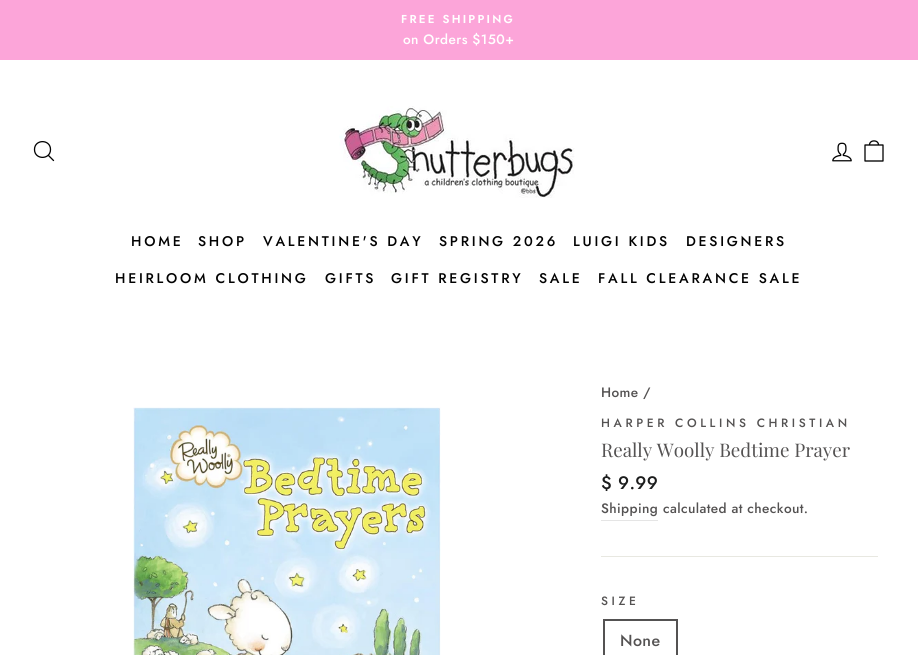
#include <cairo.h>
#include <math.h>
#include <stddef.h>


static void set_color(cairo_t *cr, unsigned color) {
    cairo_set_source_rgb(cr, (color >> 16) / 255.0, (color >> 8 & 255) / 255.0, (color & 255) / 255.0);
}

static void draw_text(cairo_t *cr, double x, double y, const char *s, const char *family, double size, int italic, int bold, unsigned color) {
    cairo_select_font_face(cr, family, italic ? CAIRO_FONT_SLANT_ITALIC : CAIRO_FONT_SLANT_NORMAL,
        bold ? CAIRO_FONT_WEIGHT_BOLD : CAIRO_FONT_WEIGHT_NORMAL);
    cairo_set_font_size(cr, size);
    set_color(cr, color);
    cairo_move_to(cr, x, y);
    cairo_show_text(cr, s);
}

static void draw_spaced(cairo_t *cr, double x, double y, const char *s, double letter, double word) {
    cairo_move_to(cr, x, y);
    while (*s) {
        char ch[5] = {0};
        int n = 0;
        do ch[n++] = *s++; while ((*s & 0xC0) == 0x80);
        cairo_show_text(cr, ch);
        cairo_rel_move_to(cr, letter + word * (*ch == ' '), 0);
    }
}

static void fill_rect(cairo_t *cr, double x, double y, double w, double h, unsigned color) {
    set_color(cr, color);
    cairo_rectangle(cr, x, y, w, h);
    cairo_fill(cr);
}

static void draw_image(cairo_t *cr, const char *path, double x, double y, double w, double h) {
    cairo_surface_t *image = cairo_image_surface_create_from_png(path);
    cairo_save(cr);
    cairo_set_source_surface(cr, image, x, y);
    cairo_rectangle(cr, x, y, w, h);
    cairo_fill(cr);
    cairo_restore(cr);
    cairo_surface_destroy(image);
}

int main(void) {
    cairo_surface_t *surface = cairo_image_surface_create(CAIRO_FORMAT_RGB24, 918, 655);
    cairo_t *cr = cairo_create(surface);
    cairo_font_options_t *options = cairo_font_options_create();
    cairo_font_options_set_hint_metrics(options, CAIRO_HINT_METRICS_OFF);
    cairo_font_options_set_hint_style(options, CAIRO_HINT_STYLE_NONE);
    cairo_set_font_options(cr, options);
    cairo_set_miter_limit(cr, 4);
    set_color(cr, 0xFFFFFF);
    cairo_paint(cr);
    fill_rect(cr, 0, 0, 918, 60, 0xFCA5D9);
    cairo_select_font_face(cr, "Jost SemiBold", CAIRO_FONT_SLANT_NORMAL, CAIRO_FONT_WEIGHT_NORMAL);
    cairo_set_font_size(cr, 11.5);
    set_color(cr, 0xFFFFFF);
    draw_spaced(cr, 401, 23, "FREE SHIPPING", 2.25, 0);
    cairo_select_font_face(cr, "Jost Medium", CAIRO_FONT_SLANT_NORMAL, CAIRO_FONT_WEIGHT_NORMAL);
    cairo_set_font_size(cr, 13.6);
    draw_spaced(cr, 403, 44, "on Orders $150+", 0.4, 0);
    cairo_new_path(cr);
    cairo_move_to(cr, 50.5, 149.5);
    cairo_curve_to(cr, 50.5, 160, 34.5, 160, 34.5, 149.5);
    cairo_curve_to(cr, 34.5, 139, 50.5, 139, 50.5, 149.5);
    cairo_close_path(cr);
    cairo_move_to(cr, 53.5, 160.5);
    cairo_line_to(cr, 48.5, 155.5);
    set_color(cr, 0x020202);
    cairo_set_line_width(cr, 1.3);
    cairo_set_line_cap(cr, CAIRO_LINE_CAP_ROUND);
    cairo_set_line_join(cr, CAIRO_LINE_JOIN_ROUND);
    cairo_stroke(cr);
    draw_image(cr, "assets/img1.png", 339, 106, 236, 92);
    draw_image(cr, "assets/img2.png", 832, 142, 20, 20);
    cairo_new_path(cr);
    cairo_move_to(cr, 865, 145);
    cairo_line_to(cr, 883, 145);
    cairo_line_to(cr, 883, 161);
    cairo_line_to(cr, 865, 161);
    cairo_close_path(cr);
    cairo_move_to(cr, 869.5, 145);
    cairo_curve_to(cr, 869.5, 139.5, 878.5, 139.5, 878.5, 145);
    cairo_stroke(cr);
    cairo_set_font_size(cr, 14);
    draw_spaced(cr, 131, 246, "HOME", 2.75, 0);
    draw_spaced(cr, 198, 246, "SHOP", 2.75, 0);
    draw_spaced(cr, 263, 246, "VALENTINE'S DAY", 2.75, 0);
    draw_spaced(cr, 439, 246, "SPRING 2026", 2.75, 0);
    draw_spaced(cr, 573, 246, "LUIGI KIDS", 2.75, 0);
    draw_spaced(cr, 686, 246, "DESIGNERS", 2.75, 0);
    draw_spaced(cr, 115, 283, "HEIRLOOM CLOTHING", 2.75, 0);
    draw_spaced(cr, 325, 283, "GIFTS", 2.75, 0);
    draw_spaced(cr, 391, 283, "GIFT REGISTRY", 2.75, 0);
    draw_spaced(cr, 539, 283, "SALE", 2.75, 0);
    draw_spaced(cr, 598, 283, "FALL CLEARANCE SALE", 2.75, 0);
    draw_image(cr, "assets/img3.png", 133, 407, 308, 248);
    cairo_set_font_size(cr, 13.6);
    set_color(cr, 0x545252);
    draw_spaced(cr, 601, 397, "Home /", 0.4, 0);
    cairo_set_font_size(cr, 12);
    draw_spaced(cr, 601, 427, "HARPER COLLINS CHRISTIAN", 3.6, 0);
    draw_text(cr, 601, 457, "Really Woolly Bedtime Prayer", "Playfair Display", 18.75, 0, 0, 0x545252);
    cairo_select_font_face(cr, "Jost Medium", CAIRO_FONT_SLANT_NORMAL, CAIRO_FONT_WEIGHT_NORMAL);
    cairo_set_font_size(cr, 18);
    set_color(cr, 0x1C1D1D);
    draw_spaced(cr, 601, 489, "$ 9.99", 0.4, 0);
    fill_rect(cr, 601, 520, 57, 1, 0xE5E5E5);
    cairo_set_font_size(cr, 13.6);
    set_color(cr, 0x545252);
    draw_spaced(cr, 601, 513, "Shipping", 0.4, 0);
    draw_spaced(cr, 663, 513, "calculated at checkout.", 0.4, 0);
    fill_rect(cr, 601, 556, 277, 1, 0xE8E8E1);
    cairo_set_font_size(cr, 12);
    set_color(cr, 0x545252);
    draw_spaced(cr, 601, 605, "SIZE", 3.6, 0);
    cairo_rectangle(cr, 604, 620, 73, 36);
    cairo_set_line_width(cr, 2);
    cairo_set_line_cap(cr, CAIRO_LINE_CAP_BUTT);
    cairo_set_line_join(cr, CAIRO_LINE_JOIN_MITER);
    cairo_stroke(cr);
    cairo_set_font_size(cr, 16);
    draw_spaced(cr, 620, 646, "None", 0.4, 0);
    cairo_surface_write_to_png(surface, "output.png");
    cairo_font_options_destroy(options);
    cairo_destroy(cr);
    cairo_surface_destroy(surface);
    return 0;
}
